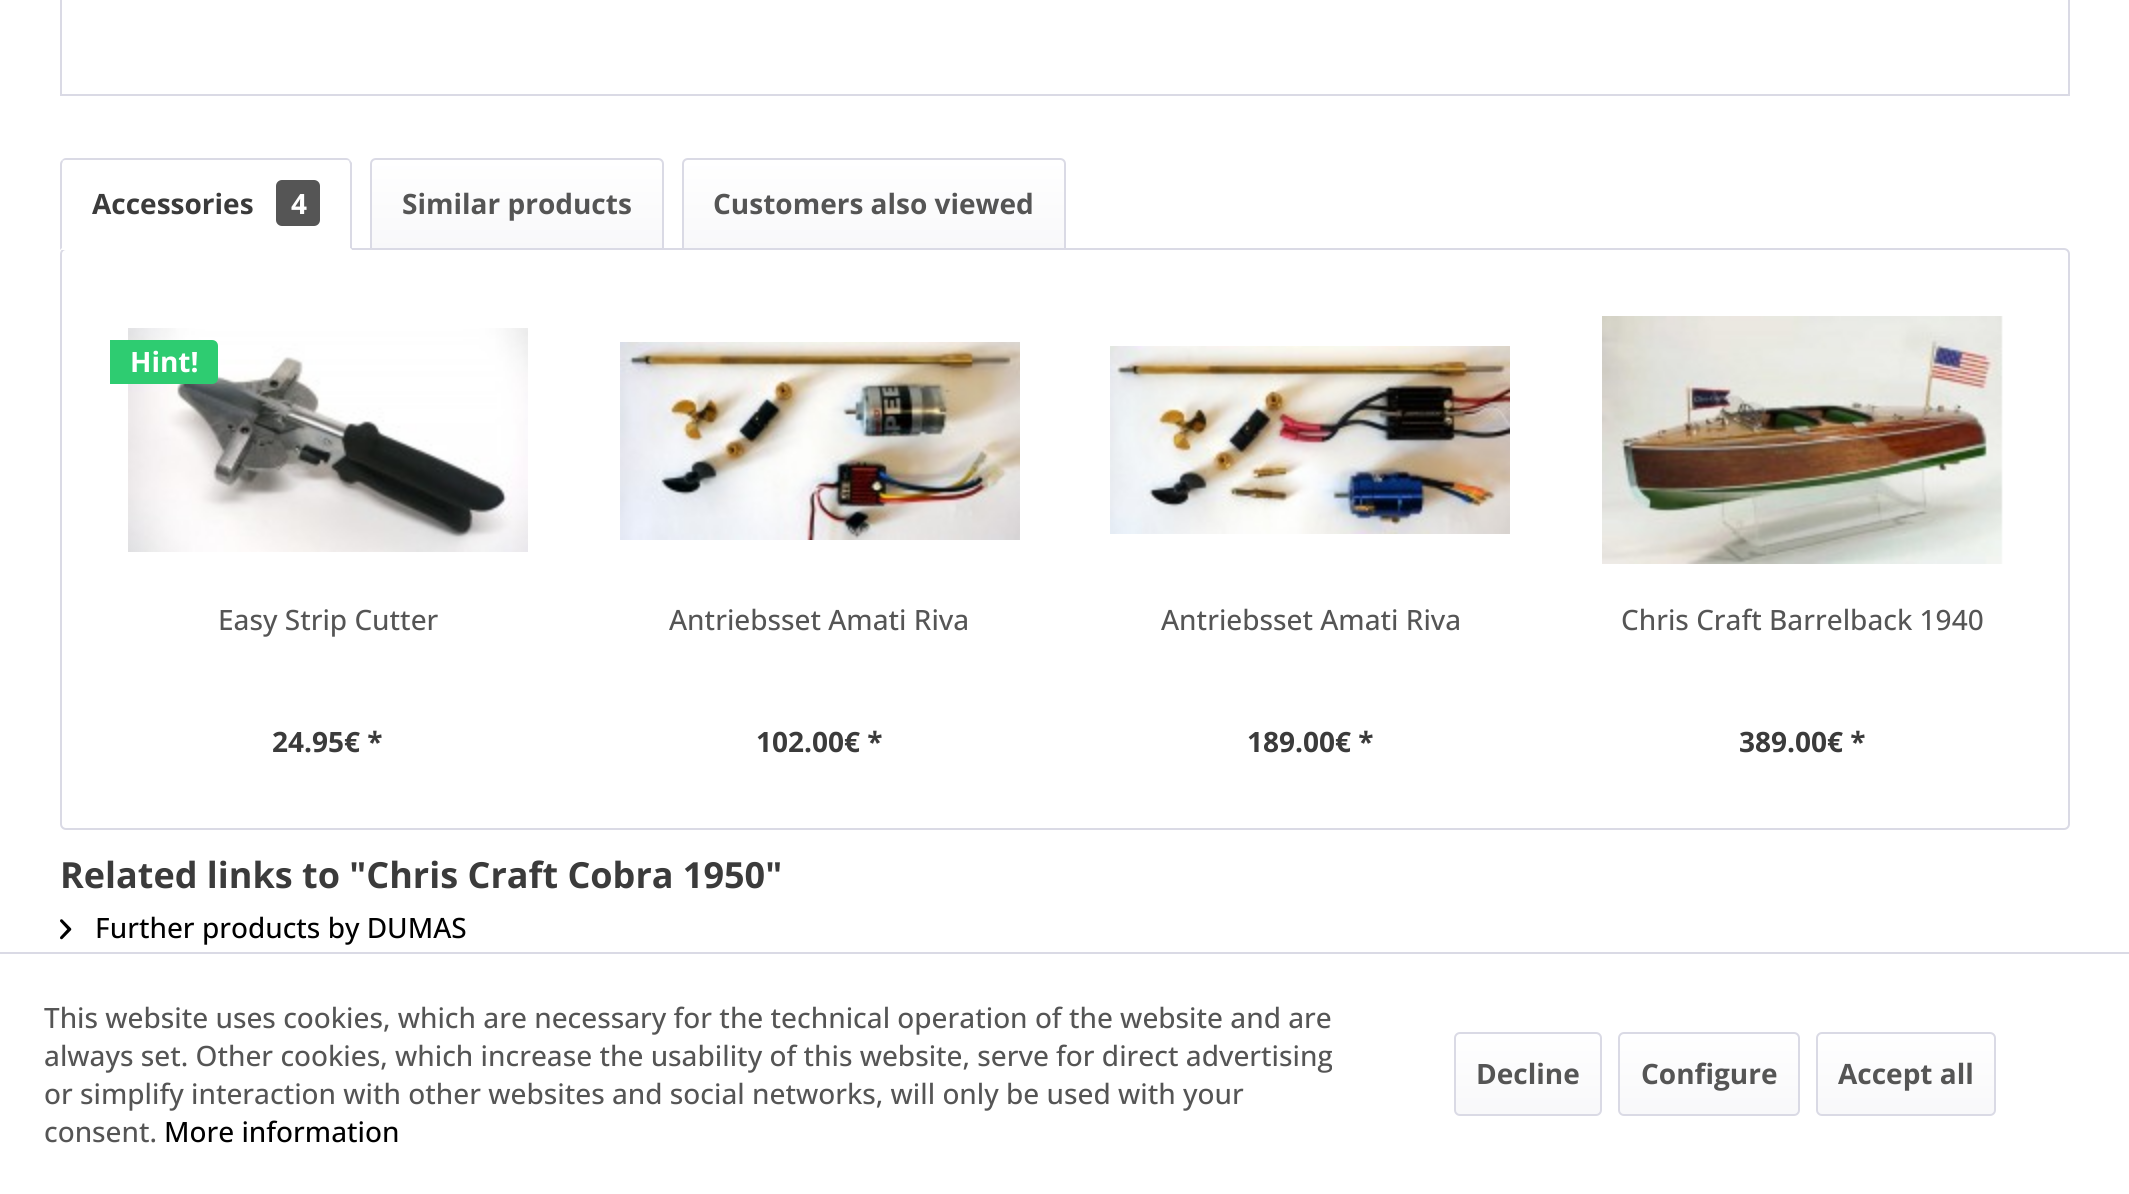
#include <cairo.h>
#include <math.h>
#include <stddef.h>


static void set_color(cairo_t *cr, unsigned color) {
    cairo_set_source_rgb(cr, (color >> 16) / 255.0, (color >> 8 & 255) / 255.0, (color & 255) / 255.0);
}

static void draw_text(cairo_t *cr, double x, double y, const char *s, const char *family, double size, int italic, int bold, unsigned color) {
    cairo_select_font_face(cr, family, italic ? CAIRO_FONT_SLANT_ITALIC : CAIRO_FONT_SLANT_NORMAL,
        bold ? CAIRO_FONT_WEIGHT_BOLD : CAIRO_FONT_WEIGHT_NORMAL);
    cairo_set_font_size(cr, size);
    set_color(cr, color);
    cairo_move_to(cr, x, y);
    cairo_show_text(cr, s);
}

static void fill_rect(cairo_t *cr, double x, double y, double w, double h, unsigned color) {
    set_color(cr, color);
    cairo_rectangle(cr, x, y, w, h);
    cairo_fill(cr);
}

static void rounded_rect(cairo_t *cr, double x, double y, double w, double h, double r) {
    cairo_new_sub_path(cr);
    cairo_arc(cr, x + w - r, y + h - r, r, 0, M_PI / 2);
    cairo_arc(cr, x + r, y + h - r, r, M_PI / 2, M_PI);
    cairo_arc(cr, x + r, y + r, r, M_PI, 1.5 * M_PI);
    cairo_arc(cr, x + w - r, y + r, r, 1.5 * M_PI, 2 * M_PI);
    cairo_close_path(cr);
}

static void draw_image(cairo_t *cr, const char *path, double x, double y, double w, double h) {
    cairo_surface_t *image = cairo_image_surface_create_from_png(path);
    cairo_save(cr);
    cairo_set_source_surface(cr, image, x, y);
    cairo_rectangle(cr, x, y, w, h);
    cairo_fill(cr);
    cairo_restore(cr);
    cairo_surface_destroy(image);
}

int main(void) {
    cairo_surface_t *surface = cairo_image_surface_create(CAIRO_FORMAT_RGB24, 2129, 1194);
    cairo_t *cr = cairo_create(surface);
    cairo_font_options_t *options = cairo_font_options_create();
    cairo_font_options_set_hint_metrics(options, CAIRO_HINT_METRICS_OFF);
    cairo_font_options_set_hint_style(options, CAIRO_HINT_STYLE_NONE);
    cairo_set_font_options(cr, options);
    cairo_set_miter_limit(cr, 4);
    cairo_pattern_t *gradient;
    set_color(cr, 0xFFFFFF);
    cairo_paint(cr);
    cairo_rectangle(cr, 61, -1, 2008, 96);
    set_color(cr, 0xDADAE5);
    cairo_stroke(cr);
    rounded_rect(cr, 61, 249, 2008, 580, 5);
    cairo_stroke(cr);
    set_color(cr, 0xFFFFFF);
    cairo_new_path(cr);
    cairo_move_to(cr, 66, 158);
    cairo_line_to(cr, 346, 158);
    cairo_curve_to(cr, 349.5, 158, 352, 160.5, 352, 164);
    cairo_line_to(cr, 352, 250);
    cairo_line_to(cr, 60, 250);
    cairo_line_to(cr, 60, 164);
    cairo_curve_to(cr, 60, 160.5, 62.5, 158, 66, 158);
    cairo_close_path(cr);
    cairo_fill(cr);
    set_color(cr, 0xDADAE5);
    cairo_new_path(cr);
    cairo_move_to(cr, 66, 158);
    cairo_curve_to(cr, 64, 158, 63, 159, 62, 160);
    cairo_line_to(cr, 63, 161);
    cairo_curve_to(cr, 64, 160, 65, 160, 66, 160);
    cairo_line_to(cr, 346, 160);
    cairo_curve_to(cr, 347, 160, 348, 160, 349, 161);
    cairo_line_to(cr, 350, 160);
    cairo_curve_to(cr, 349, 159, 348, 158, 346, 158);
    cairo_close_path(cr);
    cairo_fill(cr);
    cairo_new_path(cr);
    cairo_move_to(cr, 352, 250);
    cairo_line_to(cr, 352, 163);
    cairo_line_to(cr, 350, 160);
    cairo_line_to(cr, 349, 161);
    cairo_line_to(cr, 350, 164);
    cairo_line_to(cr, 350, 248);
    cairo_close_path(cr);
    cairo_fill(cr);
    set_color(cr, 0xFFFFFF);
    cairo_new_path(cr);
    cairo_move_to(cr, 352, 250);
    cairo_line_to(cr, 350, 248);
    cairo_line_to(cr, 62, 248);
    cairo_line_to(cr, 60, 250);
    cairo_close_path(cr);
    cairo_fill(cr);
    set_color(cr, 0xDADAE5);
    cairo_new_path(cr);
    cairo_move_to(cr, 60, 250);
    cairo_line_to(cr, 62, 248);
    cairo_line_to(cr, 62, 164);
    cairo_line_to(cr, 63, 161);
    cairo_line_to(cr, 62, 160);
    cairo_curve_to(cr, 61, 161, 60, 162, 60, 164);
    cairo_close_path(cr);
    cairo_fill(cr);
    draw_text(cr, 92, 214, "Accessories", "Open Sans", 28, 0, 1, 0x3B3B3B);
    set_color(cr, 0x555555);
    rounded_rect(cr, 276, 180, 44, 46, 6);
    cairo_fill(cr);
    draw_text(cr, 291, 214, "4", "Open Sans", 28, 0, 1, 0xFFFFFF);
    gradient = cairo_pattern_create_linear(517, 160, 517, 248);
    cairo_pattern_add_color_stop_rgba(gradient, 0, 1, 1, 1, 1);
    cairo_pattern_add_color_stop_rgba(gradient, 1, 0.973, 0.973, 0.98, 1);
    cairo_set_source(cr, gradient);
    cairo_pattern_destroy(gradient);
    cairo_new_path(cr);
    cairo_move_to(cr, 376, 160);
    cairo_line_to(cr, 658, 160);
    cairo_curve_to(cr, 660, 160, 662, 162, 662, 164);
    cairo_line_to(cr, 662, 248);
    cairo_line_to(cr, 372, 248);
    cairo_line_to(cr, 372, 164);
    cairo_curve_to(cr, 372, 162, 374, 160, 376, 160);
    cairo_close_path(cr);
    cairo_fill(cr);
    cairo_new_path(cr);
    cairo_move_to(cr, 376, 159);
    cairo_line_to(cr, 658, 159);
    cairo_curve_to(cr, 661, 159, 663, 161, 663, 164);
    cairo_line_to(cr, 663, 249);
    cairo_line_to(cr, 371, 249);
    cairo_line_to(cr, 371, 164);
    cairo_curve_to(cr, 371, 161, 373, 159, 376, 159);
    cairo_close_path(cr);
    set_color(cr, 0xDADAE5);
    cairo_stroke(cr);
    draw_text(cr, 402, 214, "Similar products", "Open Sans", 28, 0, 1, 0x555555);
    gradient = cairo_pattern_create_linear(874, 160, 874, 248);
    cairo_pattern_add_color_stop_rgba(gradient, 0, 1, 1, 1, 1);
    cairo_pattern_add_color_stop_rgba(gradient, 1, 0.973, 0.973, 0.98, 1);
    cairo_set_source(cr, gradient);
    cairo_pattern_destroy(gradient);
    cairo_new_path(cr);
    cairo_move_to(cr, 688, 160);
    cairo_line_to(cr, 1060, 160);
    cairo_curve_to(cr, 1062, 160, 1064, 162, 1064, 164);
    cairo_line_to(cr, 1064, 248);
    cairo_line_to(cr, 684, 248);
    cairo_line_to(cr, 684, 164);
    cairo_curve_to(cr, 684, 162, 686, 160, 688, 160);
    cairo_close_path(cr);
    cairo_fill(cr);
    cairo_new_path(cr);
    cairo_move_to(cr, 688, 159);
    cairo_line_to(cr, 1060, 159);
    cairo_curve_to(cr, 1063, 159, 1065, 161, 1065, 164);
    cairo_line_to(cr, 1065, 249);
    cairo_line_to(cr, 683, 249);
    cairo_line_to(cr, 683, 164);
    cairo_curve_to(cr, 683, 161, 685, 159, 688, 159);
    cairo_close_path(cr);
    set_color(cr, 0xDADAE5);
    cairo_stroke(cr);
    draw_text(cr, 713, 214, "Customers also viewed", "Open Sans", 28, 0, 1, 0x555555);
    draw_image(cr, "assets/img1.png", 128, 328, 400, 224);
    set_color(cr, 0x2ECC71);
    cairo_new_path(cr);
    cairo_move_to(cr, 110, 340);
    cairo_line_to(cr, 212, 340);
    cairo_curve_to(cr, 215.5, 340, 218, 342.5, 218, 346);
    cairo_line_to(cr, 218, 378);
    cairo_curve_to(cr, 218, 381.5, 215.5, 384, 212, 384);
    cairo_line_to(cr, 110, 384);
    cairo_close_path(cr);
    cairo_fill(cr);
    draw_text(cr, 130, 372, "Hint!", "Open Sans", 28, 0, 1, 0xFFFFFF);
    draw_text(cr, 218, 630, "Easy Strip Cutter", "Open Sans Medium", 28, 0, 0, 0x555555);
    draw_text(cr, 272, 752, "24.95€ *", "Open Sans", 28, 0, 1, 0x3B3B3B);
    draw_image(cr, "assets/img2.png", 620, 342, 400, 198);
    draw_text(cr, 669, 630, "Antriebsset Amati Riva", "Open Sans Medium", 28, 0, 0, 0x555555);
    draw_text(cr, 756, 752, "102.00€ *", "Open Sans", 28, 0, 1, 0x3B3B3B);
    draw_image(cr, "assets/img3.png", 1110, 346, 400, 188);
    draw_text(cr, 1161, 630, "Antriebsset Amati Riva", "Open Sans Medium", 28, 0, 0, 0x555555);
    draw_text(cr, 1247, 752, "189.00€ *", "Open Sans", 28, 0, 1, 0x3B3B3B);
    draw_image(cr, "assets/img4.png", 1602, 316, 401, 248);
    draw_text(cr, 1621, 630, "Chris Craft Barrelback 1940", "Open Sans Medium", 28, 0, 0, 0x555555);
    draw_text(cr, 1739, 752, "389.00€ *", "Open Sans", 28, 0, 1, 0x3B3B3B);
    draw_text(cr, 60, 888, "Related links to \"Chris Craft Cobra 1950\"", "Open Sans", 36, 0, 1, 0x3B3B3B);
    draw_image(cr, "assets/img5.png", 60, 919, 12, 21);
    draw_text(cr, 95, 938, "Further products by DUMAS", "Open Sans Medium", 28, 0, 0, 0x000000);
    fill_rect(cr, 0, 952, 2129, 2, 0xDADAE5);
    draw_text(cr, 44, 1028, "This website uses cookies, which are necessary for the technical operation of the website and are", "Open Sans Medium", 28, 0, 0, 0x555555);
    draw_text(cr, 44, 1066, "always set. Other cookies, which increase the usability of this website, serve for direct advertising", "Open Sans Medium", 28, 0, 0, 0x555555);
    draw_text(cr, 44, 1104, "or simplify interaction with other websites and social networks, will only be used with your", "Open Sans Medium", 28, 0, 0, 0x555555);
    draw_text(cr, 44, 1142, "consent.", "Open Sans Medium", 28, 0, 0, 0x555555);
    draw_text(cr, 164, 1142, "More information", "Open Sans Medium", 28, 0, 0, 0x000000);
    gradient = cairo_pattern_create_linear(1528, 1034, 1528, 1114);
    cairo_pattern_add_color_stop_rgba(gradient, 0, 1, 1, 1, 1);
    cairo_pattern_add_color_stop_rgba(gradient, 1, 0.973, 0.973, 0.98, 1);
    cairo_set_source(cr, gradient);
    cairo_pattern_destroy(gradient);
    rounded_rect(cr, 1456, 1034, 144, 80, 4);
    cairo_fill(cr);
    rounded_rect(cr, 1455, 1033, 146, 82, 5);
    set_color(cr, 0xDADAE5);
    cairo_stroke(cr);
    draw_text(cr, 1476, 1084, "Decline", "Open Sans", 28, 0, 1, 0x555555);
    gradient = cairo_pattern_create_linear(1709, 1034, 1709, 1114);
    cairo_pattern_add_color_stop_rgba(gradient, 0, 1, 1, 1, 1);
    cairo_pattern_add_color_stop_rgba(gradient, 1, 0.973, 0.973, 0.98, 1);
    cairo_set_source(cr, gradient);
    cairo_pattern_destroy(gradient);
    rounded_rect(cr, 1620, 1034, 178, 80, 4);
    cairo_fill(cr);
    rounded_rect(cr, 1619, 1033, 180, 82, 5);
    set_color(cr, 0xDADAE5);
    cairo_stroke(cr);
    draw_text(cr, 1641, 1084, "Configure", "Open Sans", 28, 0, 1, 0x555555);
    gradient = cairo_pattern_create_linear(1906, 1034, 1906, 1114);
    cairo_pattern_add_color_stop_rgba(gradient, 0, 1, 1, 1, 1);
    cairo_pattern_add_color_stop_rgba(gradient, 1, 0.973, 0.973, 0.98, 1);
    cairo_set_source(cr, gradient);
    cairo_pattern_destroy(gradient);
    rounded_rect(cr, 1818, 1034, 176, 80, 4);
    cairo_fill(cr);
    rounded_rect(cr, 1817, 1033, 178, 82, 5);
    set_color(cr, 0xDADAE5);
    cairo_stroke(cr);
    draw_text(cr, 1838, 1084, "Accept all", "Open Sans", 28, 0, 1, 0x555555);
    cairo_surface_write_to_png(surface, "output.png");
    cairo_font_options_destroy(options);
    cairo_destroy(cr);
    cairo_surface_destroy(surface);
    return 0;
}
